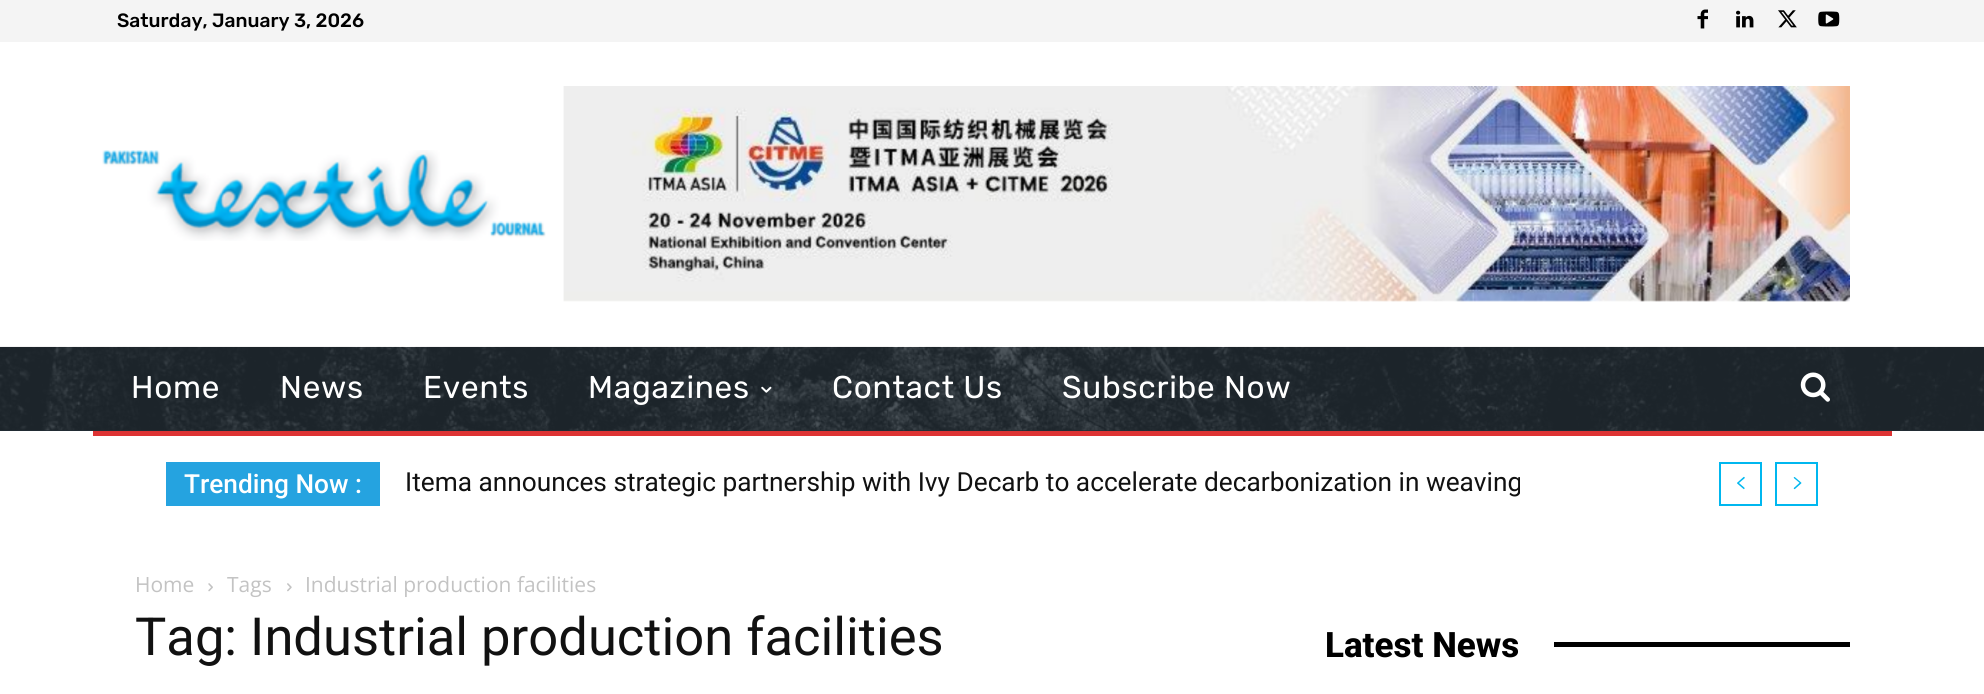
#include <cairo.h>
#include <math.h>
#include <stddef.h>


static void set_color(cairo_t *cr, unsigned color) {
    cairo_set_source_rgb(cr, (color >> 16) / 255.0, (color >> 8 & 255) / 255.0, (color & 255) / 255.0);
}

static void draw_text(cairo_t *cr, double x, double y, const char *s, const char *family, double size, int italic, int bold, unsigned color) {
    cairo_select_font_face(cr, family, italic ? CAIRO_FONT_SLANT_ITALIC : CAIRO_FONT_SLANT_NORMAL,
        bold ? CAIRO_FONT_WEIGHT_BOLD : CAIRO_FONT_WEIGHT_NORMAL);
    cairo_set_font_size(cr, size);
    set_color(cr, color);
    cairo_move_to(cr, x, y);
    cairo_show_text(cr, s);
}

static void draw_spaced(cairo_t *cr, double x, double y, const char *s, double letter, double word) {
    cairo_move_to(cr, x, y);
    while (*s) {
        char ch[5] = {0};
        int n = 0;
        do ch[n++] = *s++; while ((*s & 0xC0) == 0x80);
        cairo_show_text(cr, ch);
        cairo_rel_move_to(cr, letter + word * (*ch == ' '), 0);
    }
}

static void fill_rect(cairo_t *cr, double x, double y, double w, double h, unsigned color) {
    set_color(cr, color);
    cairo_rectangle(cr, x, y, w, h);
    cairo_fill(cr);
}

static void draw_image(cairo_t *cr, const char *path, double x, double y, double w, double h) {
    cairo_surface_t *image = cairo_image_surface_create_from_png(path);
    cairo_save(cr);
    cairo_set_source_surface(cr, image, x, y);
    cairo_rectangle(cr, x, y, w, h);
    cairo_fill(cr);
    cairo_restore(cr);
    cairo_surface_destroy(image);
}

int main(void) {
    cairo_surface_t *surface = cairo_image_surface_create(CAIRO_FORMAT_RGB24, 1984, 694);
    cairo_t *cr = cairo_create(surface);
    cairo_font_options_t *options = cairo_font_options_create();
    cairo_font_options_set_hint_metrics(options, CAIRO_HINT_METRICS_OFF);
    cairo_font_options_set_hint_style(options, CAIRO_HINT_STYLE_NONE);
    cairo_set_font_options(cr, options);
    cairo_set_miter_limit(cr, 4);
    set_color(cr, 0xFFFFFF);
    cairo_paint(cr);
    fill_rect(cr, 0, 0, 1984, 42, 0xF4F4F4);
    draw_text(cr, 117, 27, "Saturday, January 3, 2026", "Rubik Medium", 19.25, 0, 0, 0x000000);
    draw_image(cr, "assets/img1.png", 1697, 9, 11, 20);
    draw_image(cr, "assets/img2.png", 1736, 10, 18, 18);
    draw_image(cr, "assets/img3.png", 1778, 10, 19, 18);
    draw_image(cr, "assets/img4.png", 1818, 11, 22, 16);
    draw_image(cr, "assets/img5.png", 102, 150, 444, 91);
    draw_image(cr, "assets/img6.png", 563, 86, 1287, 216);
    fill_rect(cr, 0, 347, 1984, 84, 0x232D35);
    draw_image(cr, "assets/img7.png", 0, 346, 1984, 85);
    cairo_select_font_face(cr, "Rubik", CAIRO_FONT_SLANT_NORMAL, CAIRO_FONT_WEIGHT_NORMAL);
    cairo_set_font_size(cr, 31.5);
    set_color(cr, 0xFFFFFF);
    draw_spaced(cr, 131, 398, "Home", 0.75, 0);
    draw_spaced(cr, 280, 398, "News", 0.75, 0);
    draw_spaced(cr, 423, 398, "Events", 0.75, 0);
    draw_spaced(cr, 588, 398, "Magazines", 0.75, 0);
    draw_image(cr, "assets/img8.png", 761, 386, 11, 7);
    draw_spaced(cr, 832, 398, "Contact Us", 0.75, 0);
    draw_spaced(cr, 1062, 398, "Subscribe Now", 0.75, 0);
    draw_image(cr, "assets/img9.png", 1800, 372, 30, 30);
    fill_rect(cr, 93, 431, 1799, 5, 0xDD3333);
    fill_rect(cr, 166, 462, 214, 44, 0x25A3E0);
    draw_text(cr, 184, 493, "Trending Now :", "Roboto Medium", 26.25, 0, 0, 0xFFFFFF);
    draw_text(cr, 405, 491, "Itema announces strategic partnership with Ivy Decarb to accelerate decarbonization in weaving", "Roboto", 26.25, 0, 0, 0x111111);
    cairo_rectangle(cr, 1720, 463, 41, 42);
    set_color(cr, 0x00B7EF);
    cairo_stroke(cr);
    draw_image(cr, "assets/img10.png", 1737, 476, 8, 14);
    cairo_rectangle(cr, 1776, 463, 41, 42);
    cairo_stroke(cr);
    draw_image(cr, "assets/img11.png", 1793, 477, 9, 13);
    draw_text(cr, 135, 592, "Home", "Open Sans", 21, 0, 0, 0xC3C3C3);
    draw_image(cr, "assets/img12.png", 208, 583, 5, 9);
    draw_text(cr, 227, 592, "Tags", "Open Sans", 21, 0, 0, 0xC3C3C3);
    draw_image(cr, "assets/img13.png", 287, 583, 5, 9);
    draw_text(cr, 305, 592, "Industrial production facilities", "Open Sans", 21, 0, 0, 0xC3C3C3);
    draw_text(cr, 135, 655, "Tag: Industrial production facilities", "Roboto", 52.5, 0, 0, 0x111111);
    draw_text(cr, 1325, 657, "Latest News", "Roboto ExtraBold", 35, 0, 0, 0x000000);
    fill_rect(cr, 1554, 642, 296, 5, 0x000000);
    cairo_surface_write_to_png(surface, "output.png");
    cairo_font_options_destroy(options);
    cairo_destroy(cr);
    cairo_surface_destroy(surface);
    return 0;
}
